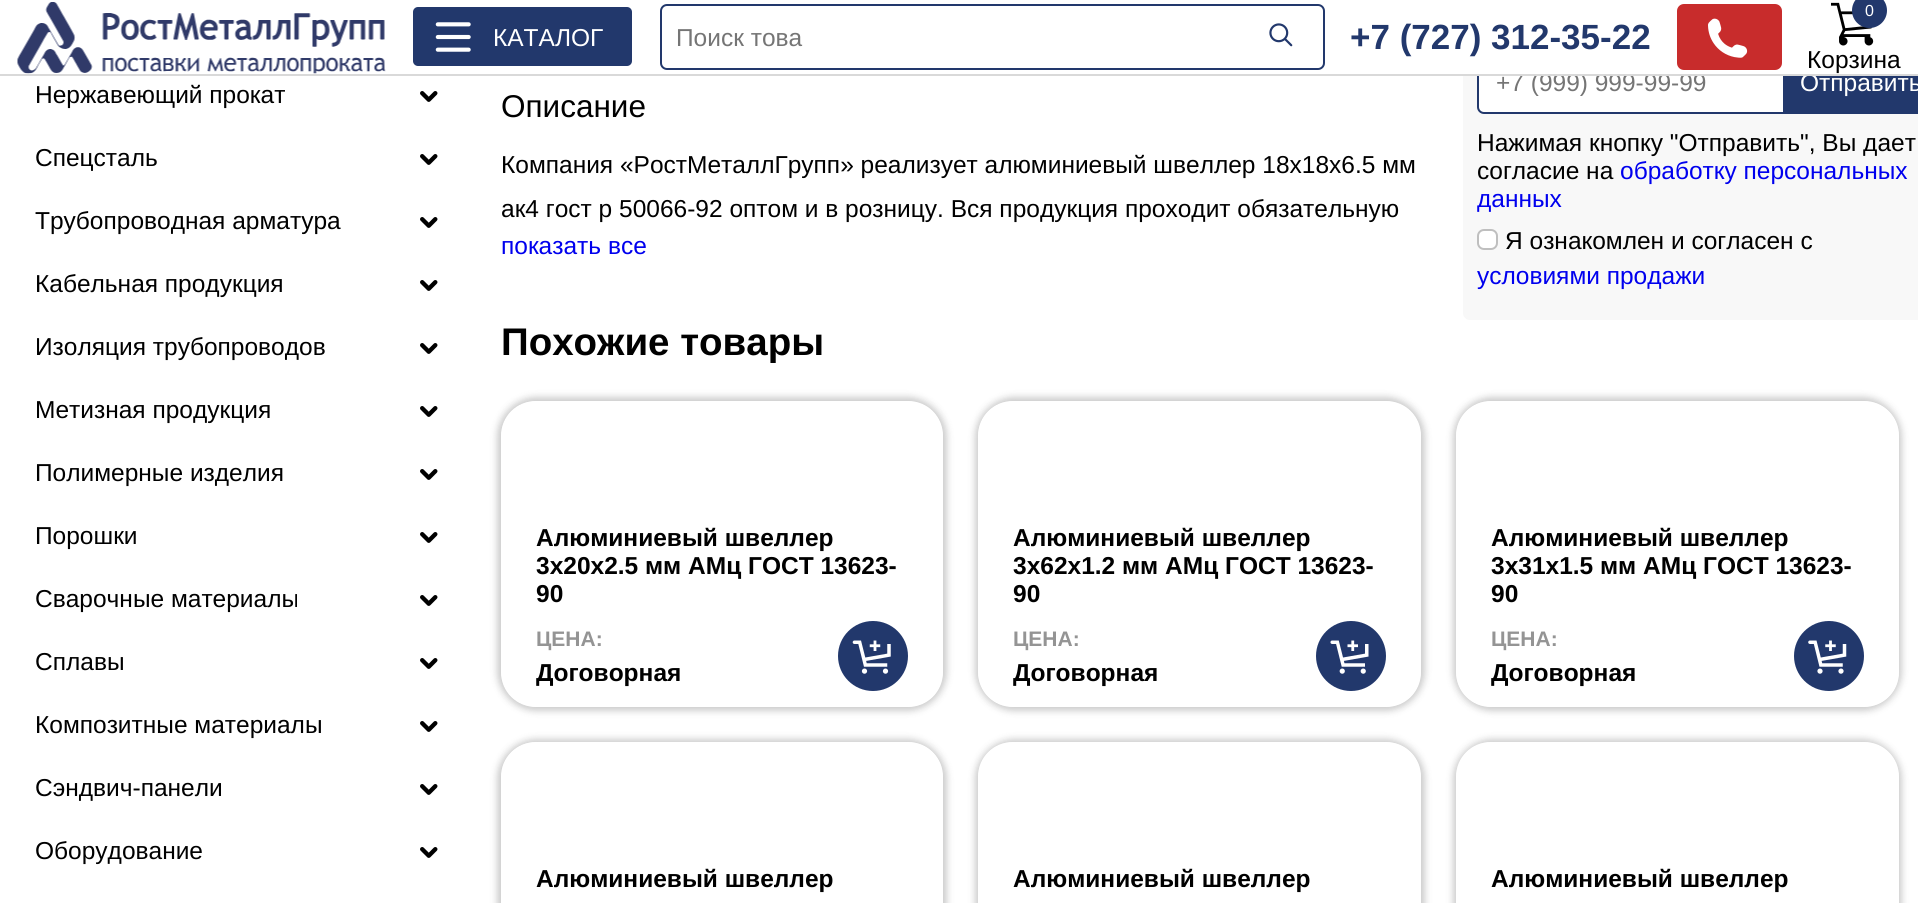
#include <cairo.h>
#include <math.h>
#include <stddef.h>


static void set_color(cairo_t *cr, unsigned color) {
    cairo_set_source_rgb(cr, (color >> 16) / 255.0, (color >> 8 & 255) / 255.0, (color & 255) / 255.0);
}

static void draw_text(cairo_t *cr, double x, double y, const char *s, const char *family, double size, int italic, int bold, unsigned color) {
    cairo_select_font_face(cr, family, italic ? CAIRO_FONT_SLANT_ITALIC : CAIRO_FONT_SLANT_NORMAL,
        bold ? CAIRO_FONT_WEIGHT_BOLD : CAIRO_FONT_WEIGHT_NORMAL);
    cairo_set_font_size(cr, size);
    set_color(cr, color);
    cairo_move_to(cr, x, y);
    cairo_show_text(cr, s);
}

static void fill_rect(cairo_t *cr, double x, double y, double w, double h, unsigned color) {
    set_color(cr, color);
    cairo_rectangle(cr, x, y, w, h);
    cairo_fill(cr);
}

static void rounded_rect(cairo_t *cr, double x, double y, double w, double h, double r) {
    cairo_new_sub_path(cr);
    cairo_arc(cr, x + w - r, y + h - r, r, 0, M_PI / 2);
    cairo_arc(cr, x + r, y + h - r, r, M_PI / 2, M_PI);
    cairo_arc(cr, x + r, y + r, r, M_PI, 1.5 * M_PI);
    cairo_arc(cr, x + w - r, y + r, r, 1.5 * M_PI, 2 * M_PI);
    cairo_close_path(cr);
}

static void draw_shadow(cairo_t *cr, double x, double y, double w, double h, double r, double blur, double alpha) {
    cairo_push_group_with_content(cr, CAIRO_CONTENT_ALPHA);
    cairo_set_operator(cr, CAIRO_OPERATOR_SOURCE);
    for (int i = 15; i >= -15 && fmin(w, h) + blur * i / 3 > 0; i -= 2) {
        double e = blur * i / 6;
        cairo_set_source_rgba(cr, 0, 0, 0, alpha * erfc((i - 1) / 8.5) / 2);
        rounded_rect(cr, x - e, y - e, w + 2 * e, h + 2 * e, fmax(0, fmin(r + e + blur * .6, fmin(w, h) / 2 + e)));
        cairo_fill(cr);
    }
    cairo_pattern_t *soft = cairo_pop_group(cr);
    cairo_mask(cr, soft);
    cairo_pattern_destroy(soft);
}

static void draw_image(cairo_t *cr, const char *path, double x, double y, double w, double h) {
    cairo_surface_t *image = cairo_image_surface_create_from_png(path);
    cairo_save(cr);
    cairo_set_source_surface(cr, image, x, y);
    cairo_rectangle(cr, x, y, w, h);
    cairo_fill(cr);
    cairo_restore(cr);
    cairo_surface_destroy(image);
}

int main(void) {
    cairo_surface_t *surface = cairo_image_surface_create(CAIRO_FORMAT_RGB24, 1918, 903);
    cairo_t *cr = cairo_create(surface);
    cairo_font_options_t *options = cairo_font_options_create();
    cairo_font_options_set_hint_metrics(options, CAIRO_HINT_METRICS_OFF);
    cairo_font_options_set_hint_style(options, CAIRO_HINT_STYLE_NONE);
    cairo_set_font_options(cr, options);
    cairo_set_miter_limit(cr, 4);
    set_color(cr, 0xFFFFFF);
    cairo_paint(cr);
    set_color(cr, 0xF8F8F8);
    rounded_rect(cr, 1463, -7, 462, 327, 7);
    cairo_fill(cr);
    set_color(cr, 0xFFFFFF);
    rounded_rect(cr, 1478, 52, 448, 61, 6);
    cairo_fill_preserve(cr);
    set_color(cr, 0x22386C);
    cairo_stroke(cr);
    cairo_save(cr);
    cairo_rectangle(cr, 1496, 68, 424, 28);
    cairo_clip(cr);
    draw_text(cr, 1496, 91, "+7 (999) 999-99-99", "Liberation Sans", 24.5, 0, 0, 0x757575);
    cairo_restore(cr);
    fill_rect(cr, 1463, 0, 455, 74, 0xFFFFFF);
    fill_rect(cr, 1783, 76, 135, 36, 0x22386C);
    draw_text(cr, 1800, 91, "Отправить", "Liberation Sans", 24.5, 0, 0, 0xFFFFFF);
    fill_rect(cr, 0, 74, 1918, 2, 0xD9D9D9);
    draw_image(cr, "assets/img1.png", 17, 2, 369, 72);
    set_color(cr, 0x22386C);
    rounded_rect(cr, 412, 6, 221, 61, 6);
    cairo_fill_preserve(cr);
    set_color(cr, 0xFFFFFF);
    cairo_stroke(cr);
    draw_image(cr, "assets/img2.png", 435, 22, 36, 30);
    draw_text(cr, 493, 46, "КАТАЛОГ", "Liberation Sans", 24.5, 0, 0, 0xFFFFFF);
    rounded_rect(cr, 661, 5, 663, 64, 6);
    set_color(cr, 0x22386C);
    cairo_stroke(cr);
    draw_text(cr, 676, 46, "Поиск това", "Liberation Sans", 24.5, 0, 0, 0x757575);
    draw_image(cr, "assets/img3.png", 1269, 23, 24, 24);
    draw_text(cr, 1350, 49, "+7 (727) 312-35-22", "Liberation Sans", 35, 0, 1, 0x22386C);
    set_color(cr, 0xC82C2C);
    rounded_rect(cr, 1677, 4, 105, 66, 7);
    cairo_fill(cr);
    draw_image(cr, "assets/img4.png", 1708, 18, 40, 40);
    draw_image(cr, "assets/img5.png", 1831, 2, 43, 44);
    set_color(cr, 0x22386C);
    cairo_arc(cr, 1869.5, 10.5, 17.5, 0, 2 * M_PI);
    cairo_fill(cr);
    draw_text(cr, 1865, 16, "0", "Liberation Sans", 16, 0, 0, 0xFFFFFF);
    draw_text(cr, 1807, 68, "Корзина", "Liberation Sans", 24.5, 0, 0, 0x000000);
    draw_text(cr, 35, 103, "Нержавеющий прокат", "Liberation Sans", 24.5, 0, 0, 0x000000);
    draw_image(cr, "assets/img6.png", 420, 91, 18, 11);
    draw_text(cr, 35, 166, "Спецсталь", "Liberation Sans", 24.5, 0, 0, 0x000000);
    draw_image(cr, "assets/img6.png", 420, 154, 18, 11);
    draw_text(cr, 35, 229, "Трубопроводная арматура", "Liberation Sans", 24.5, 0, 0, 0x000000);
    draw_image(cr, "assets/img6.png", 420, 217, 18, 11);
    draw_text(cr, 35, 292, "Кабельная продукция", "Liberation Sans", 24.5, 0, 0, 0x000000);
    draw_image(cr, "assets/img6.png", 420, 280, 18, 11);
    draw_text(cr, 35, 355, "Изоляция трубопроводов", "Liberation Sans", 24.5, 0, 0, 0x000000);
    draw_image(cr, "assets/img6.png", 420, 343, 18, 11);
    draw_text(cr, 35, 418, "Метизная продукция", "Liberation Sans", 24.5, 0, 0, 0x000000);
    draw_image(cr, "assets/img6.png", 420, 406, 18, 11);
    draw_text(cr, 35, 481, "Полимерные изделия", "Liberation Sans", 24.5, 0, 0, 0x000000);
    draw_image(cr, "assets/img6.png", 420, 469, 18, 11);
    draw_text(cr, 35, 544, "Порошки", "Liberation Sans", 24.5, 0, 0, 0x000000);
    draw_image(cr, "assets/img6.png", 420, 532, 18, 11);
    draw_text(cr, 35, 607, "Сварочные материалы", "Liberation Sans", 24.5, 0, 0, 0x000000);
    draw_image(cr, "assets/img6.png", 420, 595, 18, 11);
    draw_text(cr, 35, 670, "Сплавы", "Liberation Sans", 24.5, 0, 0, 0x000000);
    draw_image(cr, "assets/img6.png", 420, 658, 18, 11);
    draw_text(cr, 35, 733, "Композитные материалы", "Liberation Sans", 24.5, 0, 0, 0x000000);
    draw_image(cr, "assets/img6.png", 420, 721, 18, 11);
    draw_text(cr, 35, 796, "Сэндвич-панели", "Liberation Sans", 24.5, 0, 0, 0x000000);
    draw_image(cr, "assets/img6.png", 420, 784, 18, 11);
    draw_text(cr, 35, 859, "Оборудование", "Liberation Sans", 24.5, 0, 0, 0x000000);
    draw_image(cr, "assets/img6.png", 420, 847, 18, 11);
    draw_text(cr, 501, 117, "Описание", "Liberation Sans", 31.5, 0, 0, 0x000000);
    draw_text(cr, 501, 173, "Компания «РостМеталлГрупп» реализует алюминиевый швеллер 18х18х6.5 мм", "Liberation Sans", 24.5, 0, 0, 0x000000);
    draw_text(cr, 501, 217, "ак4 гост р 50066-92 оптом и в розницу. Вся продукция проходит обязательную", "Liberation Sans", 24.5, 0, 0, 0x000000);
    draw_text(cr, 501, 254, "показать все", "Liberation Sans", 24.5, 0, 0, 0x0000EE);
    draw_text(cr, 1477, 151, "Нажимая кнопку \"Отправить\", Вы дает", "Liberation Sans", 24.5, 0, 0, 0x000000);
    draw_text(cr, 1477, 179, "согласие на", "Liberation Sans", 24.5, 0, 0, 0x000000);
    draw_text(cr, 1620, 179, "обработку персональных", "Liberation Sans", 24.5, 0, 0, 0x0000EE);
    draw_text(cr, 1477, 207, "данных", "Liberation Sans", 24.5, 0, 0, 0x0000EE);
    set_color(cr, 0xFFFFFF);
    rounded_rect(cr, 1477, 229, 21, 21, 7);
    cairo_fill(cr);
    rounded_rect(cr, 1478, 230, 19, 19, 6);
    cairo_set_source_rgba(cr, 0, 0, 0, 0.25);
    cairo_stroke(cr);
    draw_text(cr, 1505, 249, "Я ознакомлен и согласен с", "Liberation Sans", 24.5, 0, 0, 0x000000);
    draw_text(cr, 1477, 284, "условиями продажи", "Liberation Sans", 24.5, 0, 0, 0x0000EE);
    draw_text(cr, 501, 355, "Похожие товары", "Liberation Sans", 38.5, 0, 1, 0x000000);
    cairo_save(cr);
    cairo_set_fill_rule(cr, CAIRO_FILL_RULE_EVEN_ODD);
    cairo_new_path(cr);
    cairo_move_to(cr, 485, 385);
    cairo_line_to(cr, 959, 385);
    cairo_line_to(cr, 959, 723);
    cairo_line_to(cr, 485, 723);
    cairo_close_path(cr);
    cairo_move_to(cr, 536, 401);
    cairo_line_to(cr, 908, 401);
    cairo_curve_to(cr, 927.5, 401, 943, 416.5, 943, 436);
    cairo_line_to(cr, 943, 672);
    cairo_curve_to(cr, 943, 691.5, 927.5, 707, 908, 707);
    cairo_line_to(cr, 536, 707);
    cairo_curve_to(cr, 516.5, 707, 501, 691.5, 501, 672);
    cairo_line_to(cr, 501, 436);
    cairo_curve_to(cr, 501, 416.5, 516.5, 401, 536, 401);
    cairo_close_path(cr);
    cairo_clip(cr);
    set_color(cr, 0x000000);
    draw_shadow(cr, 497, 397, 450, 314, 39, 3.5, 0.2);
    cairo_restore(cr);
    draw_text(cr, 536, 546, "Алюминиевый швеллер", "Liberation Sans", 24.5, 0, 1, 0x000000);
    draw_text(cr, 536, 574, "3х20х2.5 мм АМц ГОСТ 13623-", "Liberation Sans", 24.5, 0, 1, 0x000000);
    draw_text(cr, 536, 602, "90", "Liberation Sans", 24.5, 0, 1, 0x000000);
    draw_text(cr, 536, 646, "ЦЕНА:", "Liberation Sans", 21, 0, 1, 0x949494);
    draw_text(cr, 536, 681, "Договорная", "Liberation Sans", 24.5, 0, 1, 0x000000);
    set_color(cr, 0x22386C);
    cairo_new_path(cr);
    cairo_arc(cr, 873, 656, 35, 0, 2 * M_PI);
    cairo_fill(cr);
    draw_image(cr, "assets/img7.png", 852, 640, 39, 34);
    cairo_save(cr);
    cairo_set_fill_rule(cr, CAIRO_FILL_RULE_EVEN_ODD);
    cairo_new_path(cr);
    cairo_move_to(cr, 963, 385);
    cairo_line_to(cr, 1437, 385);
    cairo_line_to(cr, 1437, 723);
    cairo_line_to(cr, 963, 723);
    cairo_close_path(cr);
    cairo_move_to(cr, 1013, 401);
    cairo_line_to(cr, 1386, 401);
    cairo_curve_to(cr, 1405.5, 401, 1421, 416.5, 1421, 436);
    cairo_line_to(cr, 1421, 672);
    cairo_curve_to(cr, 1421, 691.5, 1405.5, 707, 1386, 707);
    cairo_line_to(cr, 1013, 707);
    cairo_curve_to(cr, 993.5, 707, 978, 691.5, 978, 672);
    cairo_line_to(cr, 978, 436);
    cairo_curve_to(cr, 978, 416.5, 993.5, 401, 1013, 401);
    cairo_close_path(cr);
    cairo_clip(cr);
    set_color(cr, 0x000000);
    draw_shadow(cr, 975, 397, 450, 314, 39, 3.5, 0.2);
    cairo_restore(cr);
    draw_text(cr, 1013, 546, "Алюминиевый швеллер", "Liberation Sans", 24.5, 0, 1, 0x000000);
    draw_text(cr, 1013, 574, "3х62х1.2 мм АМц ГОСТ 13623-", "Liberation Sans", 24.5, 0, 1, 0x000000);
    draw_text(cr, 1013, 602, "90", "Liberation Sans", 24.5, 0, 1, 0x000000);
    draw_text(cr, 1013, 646, "ЦЕНА:", "Liberation Sans", 21, 0, 1, 0x949494);
    draw_text(cr, 1013, 681, "Договорная", "Liberation Sans", 24.5, 0, 1, 0x000000);
    set_color(cr, 0x22386C);
    cairo_new_path(cr);
    cairo_arc(cr, 1351, 656, 35, 0, 2 * M_PI);
    cairo_fill(cr);
    draw_image(cr, "assets/img8.png", 1330, 640, 39, 34);
    cairo_save(cr);
    cairo_set_fill_rule(cr, CAIRO_FILL_RULE_EVEN_ODD);
    cairo_new_path(cr);
    cairo_move_to(cr, 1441, 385);
    cairo_line_to(cr, 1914, 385);
    cairo_line_to(cr, 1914, 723);
    cairo_line_to(cr, 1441, 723);
    cairo_close_path(cr);
    cairo_move_to(cr, 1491, 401);
    cairo_line_to(cr, 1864, 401);
    cairo_curve_to(cr, 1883.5, 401, 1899, 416.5, 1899, 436);
    cairo_line_to(cr, 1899, 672);
    cairo_curve_to(cr, 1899, 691.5, 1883.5, 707, 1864, 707);
    cairo_line_to(cr, 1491, 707);
    cairo_curve_to(cr, 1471.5, 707, 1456, 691.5, 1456, 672);
    cairo_line_to(cr, 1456, 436);
    cairo_curve_to(cr, 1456, 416.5, 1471.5, 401, 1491, 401);
    cairo_close_path(cr);
    cairo_clip(cr);
    set_color(cr, 0x000000);
    draw_shadow(cr, 1453, 397, 449, 314, 39, 3.5, 0.2);
    cairo_restore(cr);
    draw_text(cr, 1491, 546, "Алюминиевый швеллер", "Liberation Sans", 24.5, 0, 1, 0x000000);
    draw_text(cr, 1491, 574, "3х31х1.5 мм АМц ГОСТ 13623-", "Liberation Sans", 24.5, 0, 1, 0x000000);
    draw_text(cr, 1491, 602, "90", "Liberation Sans", 24.5, 0, 1, 0x000000);
    draw_text(cr, 1491, 646, "ЦЕНА:", "Liberation Sans", 21, 0, 1, 0x949494);
    draw_text(cr, 1491, 681, "Договорная", "Liberation Sans", 24.5, 0, 1, 0x000000);
    set_color(cr, 0x22386C);
    cairo_new_path(cr);
    cairo_arc(cr, 1829, 656, 35, 0, 2 * M_PI);
    cairo_fill(cr);
    draw_image(cr, "assets/img9.png", 1808, 640, 39, 34);
    cairo_save(cr);
    cairo_set_fill_rule(cr, CAIRO_FILL_RULE_EVEN_ODD);
    cairo_new_path(cr);
    cairo_move_to(cr, 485, 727);
    cairo_line_to(cr, 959, 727);
    cairo_line_to(cr, 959, 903);
    cairo_line_to(cr, 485, 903);
    cairo_close_path(cr);
    cairo_move_to(cr, 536, 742);
    cairo_line_to(cr, 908, 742);
    cairo_curve_to(cr, 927.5, 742, 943, 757.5, 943, 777);
    cairo_line_to(cr, 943, 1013);
    cairo_curve_to(cr, 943, 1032.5, 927.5, 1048, 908, 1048);
    cairo_line_to(cr, 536, 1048);
    cairo_curve_to(cr, 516.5, 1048, 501, 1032.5, 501, 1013);
    cairo_line_to(cr, 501, 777);
    cairo_curve_to(cr, 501, 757.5, 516.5, 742, 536, 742);
    cairo_close_path(cr);
    cairo_clip(cr);
    set_color(cr, 0x000000);
    draw_shadow(cr, 497, 739, 450, 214, 39, 3.5, 0.2);
    cairo_restore(cr);
    draw_text(cr, 536, 887, "Алюминиевый швеллер", "Liberation Sans", 24.5, 0, 1, 0x000000);
    cairo_save(cr);
    cairo_set_fill_rule(cr, CAIRO_FILL_RULE_EVEN_ODD);
    cairo_new_path(cr);
    cairo_move_to(cr, 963, 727);
    cairo_line_to(cr, 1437, 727);
    cairo_line_to(cr, 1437, 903);
    cairo_line_to(cr, 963, 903);
    cairo_close_path(cr);
    cairo_move_to(cr, 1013, 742);
    cairo_line_to(cr, 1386, 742);
    cairo_curve_to(cr, 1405.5, 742, 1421, 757.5, 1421, 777);
    cairo_line_to(cr, 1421, 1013);
    cairo_curve_to(cr, 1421, 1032.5, 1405.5, 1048, 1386, 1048);
    cairo_line_to(cr, 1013, 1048);
    cairo_curve_to(cr, 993.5, 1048, 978, 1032.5, 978, 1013);
    cairo_line_to(cr, 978, 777);
    cairo_curve_to(cr, 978, 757.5, 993.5, 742, 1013, 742);
    cairo_close_path(cr);
    cairo_clip(cr);
    set_color(cr, 0x000000);
    draw_shadow(cr, 975, 739, 450, 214, 39, 3.5, 0.2);
    cairo_restore(cr);
    draw_text(cr, 1013, 887, "Алюминиевый швеллер", "Liberation Sans", 24.5, 0, 1, 0x000000);
    cairo_save(cr);
    cairo_set_fill_rule(cr, CAIRO_FILL_RULE_EVEN_ODD);
    cairo_new_path(cr);
    cairo_move_to(cr, 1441, 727);
    cairo_line_to(cr, 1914, 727);
    cairo_line_to(cr, 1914, 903);
    cairo_line_to(cr, 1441, 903);
    cairo_close_path(cr);
    cairo_move_to(cr, 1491, 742);
    cairo_line_to(cr, 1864, 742);
    cairo_curve_to(cr, 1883.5, 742, 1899, 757.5, 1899, 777);
    cairo_line_to(cr, 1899, 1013);
    cairo_curve_to(cr, 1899, 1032.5, 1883.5, 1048, 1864, 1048);
    cairo_line_to(cr, 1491, 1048);
    cairo_curve_to(cr, 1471.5, 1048, 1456, 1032.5, 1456, 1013);
    cairo_line_to(cr, 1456, 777);
    cairo_curve_to(cr, 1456, 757.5, 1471.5, 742, 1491, 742);
    cairo_close_path(cr);
    cairo_clip(cr);
    set_color(cr, 0x000000);
    draw_shadow(cr, 1453, 739, 449, 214, 39, 3.5, 0.2);
    cairo_restore(cr);
    draw_text(cr, 1491, 887, "Алюминиевый швеллер", "Liberation Sans", 24.5, 0, 1, 0x000000);
    cairo_surface_write_to_png(surface, "output.png");
    cairo_font_options_destroy(options);
    cairo_destroy(cr);
    cairo_surface_destroy(surface);
    return 0;
}
